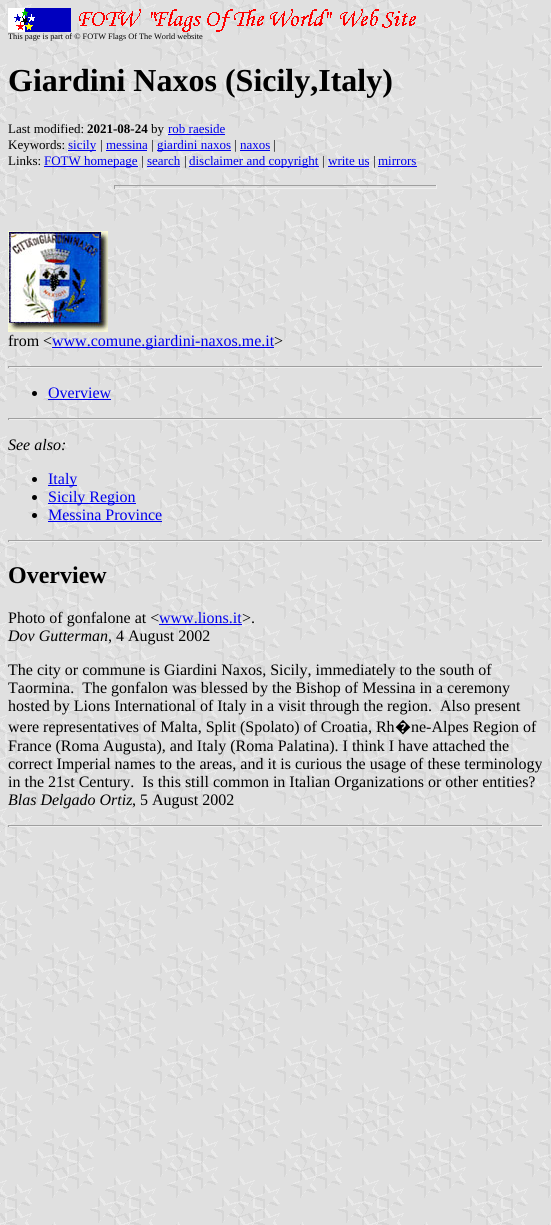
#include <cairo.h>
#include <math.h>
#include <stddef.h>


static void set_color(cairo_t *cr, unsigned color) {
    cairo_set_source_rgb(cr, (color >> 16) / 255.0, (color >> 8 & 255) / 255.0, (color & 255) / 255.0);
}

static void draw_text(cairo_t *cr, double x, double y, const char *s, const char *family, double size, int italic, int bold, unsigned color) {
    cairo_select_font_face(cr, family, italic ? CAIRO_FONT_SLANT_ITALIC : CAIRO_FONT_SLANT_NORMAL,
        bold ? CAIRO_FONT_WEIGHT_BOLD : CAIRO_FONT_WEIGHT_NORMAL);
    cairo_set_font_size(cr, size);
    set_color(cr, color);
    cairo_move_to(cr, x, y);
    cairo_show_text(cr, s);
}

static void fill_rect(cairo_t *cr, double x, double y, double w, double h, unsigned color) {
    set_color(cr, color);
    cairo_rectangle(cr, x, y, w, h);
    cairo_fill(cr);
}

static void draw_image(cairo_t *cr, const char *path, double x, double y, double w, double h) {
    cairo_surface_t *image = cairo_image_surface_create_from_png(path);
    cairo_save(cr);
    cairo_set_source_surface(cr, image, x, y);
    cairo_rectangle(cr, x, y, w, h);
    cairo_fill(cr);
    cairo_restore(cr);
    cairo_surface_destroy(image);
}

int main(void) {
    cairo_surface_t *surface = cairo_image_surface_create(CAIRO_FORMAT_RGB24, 551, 1225);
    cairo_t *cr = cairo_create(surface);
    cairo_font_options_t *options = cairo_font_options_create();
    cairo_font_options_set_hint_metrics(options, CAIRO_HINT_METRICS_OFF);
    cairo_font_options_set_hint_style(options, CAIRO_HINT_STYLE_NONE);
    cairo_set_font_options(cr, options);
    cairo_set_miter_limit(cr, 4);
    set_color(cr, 0xFFFFFF);
    cairo_paint(cr);
    draw_image(cr, "assets/img1.png", 0, 0, 551, 1225);
    draw_image(cr, "assets/img2.png", 8, 8, 408, 24);
    draw_text(cr, 8, 39, "This page is part of © FOTW Flags Of The World website", "Liberation Serif", 8.3, 0, 0, 0x000000);
    draw_text(cr, 8, 91, "Giardini Naxos (Sicily,Italy)", "Liberation Serif", 32, 0, 1, 0x000000);
    draw_text(cr, 8, 133, "Last modified:", "Liberation Serif", 13, 0, 0, 0x000000);
    draw_text(cr, 87, 133, "2021-08-24", "Liberation Serif", 13, 0, 1, 0x000000);
    draw_text(cr, 151, 133, "by", "Liberation Serif", 13, 0, 0, 0x000000);
    draw_text(cr, 168, 133, "rob raeside", "Liberation Serif", 13, 0, 0, 0x0000EE);
    fill_rect(cr, 168, 134, 57, 1, 0x0000EE);
    draw_text(cr, 8, 149, "Keywords:", "Liberation Serif", 13, 0, 0, 0x000000);
    fill_rect(cr, 68, 150, 28, 1, 0x0000EE);
    draw_text(cr, 68, 149, "sicily", "Liberation Serif", 13, 0, 0, 0x0000EE);
    draw_text(cr, 100, 149, "|", "Liberation Serif", 13, 0, 0, 0x000000);
    draw_text(cr, 106, 149, "messina", "Liberation Serif", 13, 0, 0, 0x0000EE);
    fill_rect(cr, 106, 150, 41, 1, 0x0000EE);
    draw_text(cr, 151, 149, "|", "Liberation Serif", 13, 0, 0, 0x000000);
    fill_rect(cr, 157, 150, 74, 1, 0x0000EE);
    draw_text(cr, 157, 149, "giardini naxos", "Liberation Serif", 13, 0, 0, 0x0000EE);
    draw_text(cr, 234, 149, "|", "Liberation Serif", 13, 0, 0, 0x000000);
    draw_text(cr, 240, 149, "naxos", "Liberation Serif", 13, 0, 0, 0x0000EE);
    fill_rect(cr, 240, 150, 30, 1, 0x0000EE);
    draw_text(cr, 273, 149, "|", "Liberation Serif", 13, 0, 0, 0x000000);
    draw_text(cr, 8, 165, "Links:", "Liberation Serif", 13, 0, 0, 0x000000);
    fill_rect(cr, 44, 166, 94, 1, 0x0000EE);
    draw_text(cr, 44, 165, "FOTW homepage", "Liberation Serif", 13, 0, 0, 0x0000EE);
    draw_text(cr, 141, 165, "|", "Liberation Serif", 13, 0, 0, 0x000000);
    draw_text(cr, 147, 165, "search", "Liberation Serif", 13, 0, 0, 0x0000EE);
    fill_rect(cr, 147, 166, 33, 1, 0x0000EE);
    draw_text(cr, 184, 165, "|", "Liberation Serif", 13, 0, 0, 0x000000);
    fill_rect(cr, 189, 166, 130, 1, 0x0000EE);
    draw_text(cr, 189, 165, "disclaimer and copyright", "Liberation Serif", 13, 0, 0, 0x0000EE);
    draw_text(cr, 322, 165, "|", "Liberation Serif", 13, 0, 0, 0x000000);
    draw_text(cr, 328, 165, "write us", "Liberation Serif", 13, 0, 0, 0x0000EE);
    fill_rect(cr, 328, 166, 41, 1, 0x0000EE);
    draw_text(cr, 373, 165, "|", "Liberation Serif", 13, 0, 0, 0x000000);
    draw_text(cr, 378, 165, "mirrors", "Liberation Serif", 13, 0, 0, 0x0000EE);
    fill_rect(cr, 378, 166, 39, 1, 0x0000EE);
    fill_rect(cr, 114, 185, 323, 1, 0x9F9F9F);
    fill_rect(cr, 436, 185, 1, 4, 0xEEEEEE);
    fill_rect(cr, 114, 188, 323, 1, 0xEEEEEE);
    fill_rect(cr, 114, 185, 1, 4, 0x9F9F9F);
    draw_image(cr, "assets/img3.png", 8, 231, 100, 101);
    draw_text(cr, 8, 346, "from <", "Liberation Serif", 16, 0, 0, 0x000000);
    fill_rect(cr, 52, 347, 222, 1, 0x0000EE);
    draw_text(cr, 52, 346, "www.comune.giardini-naxos.me.it", "Liberation Serif", 16, 0, 0, 0x0000EE);
    draw_text(cr, 274, 346, ">", "Liberation Serif", 16, 0, 0, 0x000000);
    fill_rect(cr, 8, 366, 535, 1, 0x9F9F9F);
    fill_rect(cr, 542, 366, 1, 2, 0xEEEEEE);
    fill_rect(cr, 8, 367, 535, 1, 0xEEEEEE);
    fill_rect(cr, 8, 366, 1, 2, 0x9F9F9F);
    set_color(cr, 0x000000);
    cairo_new_path(cr);
    cairo_arc(cr, 34.5, 393.5, 2.5, 0, 2 * M_PI);
    cairo_fill(cr);
    draw_text(cr, 48, 398, "Overview", "Liberation Serif", 16, 0, 0, 0x0000EE);
    fill_rect(cr, 48, 399, 63, 1, 0x0000EE);
    fill_rect(cr, 8, 418, 535, 1, 0x9F9F9F);
    fill_rect(cr, 542, 418, 1, 2, 0xEEEEEE);
    fill_rect(cr, 8, 419, 535, 1, 0xEEEEEE);
    fill_rect(cr, 8, 418, 1, 2, 0x9F9F9F);
    draw_text(cr, 8, 450, "See also:", "Liberation Serif", 16, 1, 0, 0x000000);
    cairo_new_path(cr);
    cairo_arc(cr, 34.5, 479.5, 2.5, 0, 2 * M_PI);
    cairo_fill(cr);
    fill_rect(cr, 48, 485, 29, 1, 0x0000EE);
    draw_text(cr, 48, 484, "Italy", "Liberation Serif", 16, 0, 0, 0x0000EE);
    set_color(cr, 0x000000);
    cairo_new_path(cr);
    cairo_arc(cr, 34.5, 497.5, 2.5, 0, 2 * M_PI);
    cairo_fill(cr);
    fill_rect(cr, 48, 503, 88, 1, 0x0000EE);
    draw_text(cr, 48, 502, "Sicily Region", "Liberation Serif", 16, 0, 0, 0x0000EE);
    set_color(cr, 0x000000);
    cairo_new_path(cr);
    cairo_arc(cr, 34.5, 515.5, 2.5, 0, 2 * M_PI);
    cairo_fill(cr);
    draw_text(cr, 48, 520, "Messina Province", "Liberation Serif", 16, 0, 0, 0x0000EE);
    fill_rect(cr, 48, 521, 114, 1, 0x0000EE);
    fill_rect(cr, 8, 540, 535, 1, 0x9F9F9F);
    fill_rect(cr, 542, 540, 1, 2, 0xEEEEEE);
    fill_rect(cr, 8, 541, 535, 1, 0xEEEEEE);
    fill_rect(cr, 8, 540, 1, 2, 0x9F9F9F);
    draw_text(cr, 8, 583, "Overview", "Liberation Serif", 24, 0, 1, 0x000000);
    draw_text(cr, 8, 623, "Photo of gonfalone at <", "Liberation Serif", 16, 0, 0, 0x000000);
    draw_text(cr, 159, 623, "www.lions.it", "Liberation Serif", 16, 0, 0, 0x0000EE);
    fill_rect(cr, 159, 624, 83, 1, 0x0000EE);
    draw_text(cr, 242, 623, ">.", "Liberation Serif", 16, 0, 0, 0x000000);
    draw_text(cr, 8, 641, "Dov Gutterman", "Liberation Serif", 16, 1, 0, 0x000000);
    draw_text(cr, 108, 641, ", 4 August 2002", "Liberation Serif", 16, 0, 0, 0x000000);
    draw_text(cr, 8, 675, "The city or commune is Giardini Naxos, Sicily, immediately to the south of", "Liberation Serif", 16, 0, 0, 0x000000);
    draw_text(cr, 8, 693, "Taormina.  The gonfalon was blessed by the Bishop of Messina in a ceremony", "Liberation Serif", 16, 0, 0, 0x000000);
    draw_text(cr, 8, 711, "hosted by Lions International of Italy in a visit through the region.  Also present", "Liberation Serif", 16, 0, 0, 0x000000);
    draw_text(cr, 8, 732, "were representatives of Malta, Split (Spolato) of Croatia, Rh", "Liberation Serif", 16, 0, 0, 0x000000);
    draw_text(cr, 395, 732, "�", "Noto Sans", 16, 0, 0, 0x000000);
    draw_text(cr, 411, 732, "ne-Alpes Region of", "Liberation Serif", 16, 0, 0, 0x000000);
    draw_text(cr, 8, 751, "France (Roma Augusta), and Italy (Roma Palatina). I think I have attached the", "Liberation Serif", 16, 0, 0, 0x000000);
    draw_text(cr, 8, 769, "correct Imperial names to the areas, and it is curious the usage of these terminology", "Liberation Serif", 16, 0, 0, 0x000000);
    draw_text(cr, 8, 787, "in the 21st Century.  Is this still common in Italian Organizations or other entities?", "Liberation Serif", 16, 0, 0, 0x000000);
    draw_text(cr, 8, 805, "Blas Delgado Ortiz", "Liberation Serif", 16, 1, 0, 0x000000);
    draw_text(cr, 132, 805, ", 5 August 2002", "Liberation Serif", 16, 0, 0, 0x000000);
    fill_rect(cr, 8, 825, 535, 1, 0x9F9F9F);
    fill_rect(cr, 542, 825, 1, 2, 0xEEEEEE);
    fill_rect(cr, 8, 826, 535, 1, 0xEEEEEE);
    fill_rect(cr, 8, 825, 1, 2, 0x9F9F9F);
    cairo_surface_write_to_png(surface, "output.png");
    cairo_font_options_destroy(options);
    cairo_destroy(cr);
    cairo_surface_destroy(surface);
    return 0;
}
